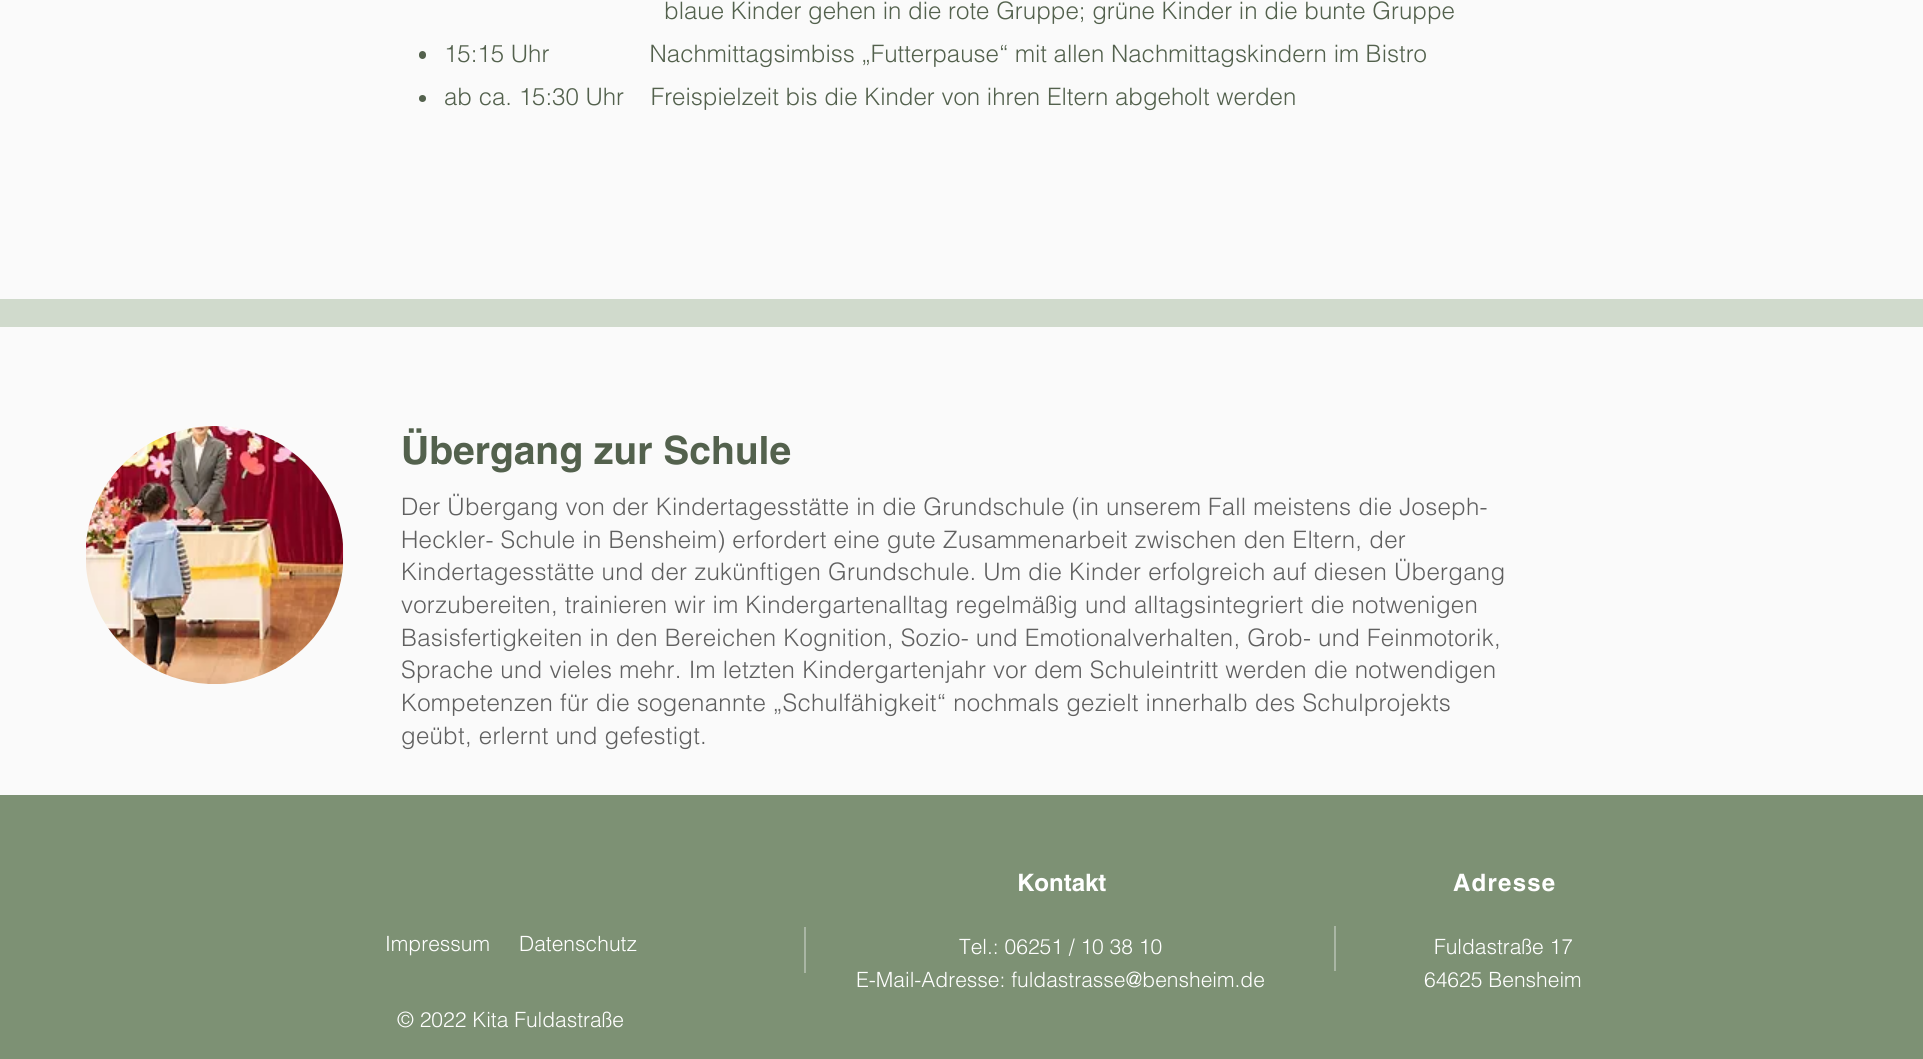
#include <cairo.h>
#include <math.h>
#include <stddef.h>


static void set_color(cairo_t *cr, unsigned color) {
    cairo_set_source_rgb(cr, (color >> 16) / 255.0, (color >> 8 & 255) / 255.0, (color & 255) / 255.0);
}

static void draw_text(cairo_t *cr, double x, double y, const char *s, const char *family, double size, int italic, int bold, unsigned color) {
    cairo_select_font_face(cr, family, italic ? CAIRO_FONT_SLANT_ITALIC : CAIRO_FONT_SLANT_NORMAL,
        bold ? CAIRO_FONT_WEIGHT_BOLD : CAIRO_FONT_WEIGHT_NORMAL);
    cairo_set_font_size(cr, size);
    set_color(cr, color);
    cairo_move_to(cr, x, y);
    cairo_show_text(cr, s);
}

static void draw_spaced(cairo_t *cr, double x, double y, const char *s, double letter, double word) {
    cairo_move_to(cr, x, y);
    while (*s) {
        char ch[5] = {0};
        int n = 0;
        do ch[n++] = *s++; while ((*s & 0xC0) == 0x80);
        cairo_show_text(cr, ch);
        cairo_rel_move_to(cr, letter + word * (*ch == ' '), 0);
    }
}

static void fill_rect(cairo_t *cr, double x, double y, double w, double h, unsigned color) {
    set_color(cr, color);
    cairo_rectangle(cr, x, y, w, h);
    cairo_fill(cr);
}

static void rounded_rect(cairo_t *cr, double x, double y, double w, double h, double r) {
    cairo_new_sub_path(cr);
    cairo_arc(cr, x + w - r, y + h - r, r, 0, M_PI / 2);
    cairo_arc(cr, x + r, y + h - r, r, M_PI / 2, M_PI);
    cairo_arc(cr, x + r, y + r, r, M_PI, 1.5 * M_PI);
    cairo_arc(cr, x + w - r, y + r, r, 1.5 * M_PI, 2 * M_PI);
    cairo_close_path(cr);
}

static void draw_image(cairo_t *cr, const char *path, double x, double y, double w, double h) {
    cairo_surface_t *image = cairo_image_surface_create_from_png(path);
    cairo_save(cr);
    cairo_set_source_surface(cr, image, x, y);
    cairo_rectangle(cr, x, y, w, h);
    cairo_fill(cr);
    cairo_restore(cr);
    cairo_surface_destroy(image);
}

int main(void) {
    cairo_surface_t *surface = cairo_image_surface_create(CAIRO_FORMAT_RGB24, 1923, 1059);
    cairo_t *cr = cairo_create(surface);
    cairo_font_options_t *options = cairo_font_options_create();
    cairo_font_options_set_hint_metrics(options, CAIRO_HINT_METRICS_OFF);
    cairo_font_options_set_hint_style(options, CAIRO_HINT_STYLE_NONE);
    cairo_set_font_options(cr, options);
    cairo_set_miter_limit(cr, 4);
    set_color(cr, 0xFAFAFA);
    cairo_paint(cr);
    draw_text(cr, 664, 19, "blaue Kinder gehen in die rote Gruppe; grüne Kinder in die bunte Gruppe", "helvetica Light", 24, 0, 0, 0x53614D);
    rounded_rect(cr, 419, 51, 7, 8, 3.5);
    cairo_fill(cr);
    draw_text(cr, 444, 62, "15:15 Uhr               Nachmittagsimbiss „Futterpause“ mit allen Nachmittagskindern im Bistro", "helvetica Light", 24, 0, 0, 0x53614D);
    cairo_new_path(cr);
    cairo_arc(cr, 422.5, 98.5, 3.5, 0, 2 * M_PI);
    cairo_fill(cr);
    draw_text(cr, 444, 105, "ab ca. 15:30 Uhr    Freispielzeit bis die Kinder von ihren Eltern abgeholt werden", "helvetica Light", 24, 0, 0, 0x53614D);
    fill_rect(cr, 0, 299, 1923, 28, 0xD0DACC);
    draw_image(cr, "assets/img1.png", 86, 426, 258, 258);
    draw_text(cr, 401, 464, "Übergang zur Schule", "helvetica", 39, 0, 1, 0x53614D);
    cairo_select_font_face(cr, "helvetica Light", CAIRO_FONT_SLANT_NORMAL, CAIRO_FONT_WEIGHT_NORMAL);
    cairo_set_font_size(cr, 24);
    set_color(cr, 0x606060);
    draw_spaced(cr, 401, 515, "Der Übergang von der Kindertagesstätte in die Grundschule (in unserem Fall meistens die Joseph-", 0.25, 0);
    draw_spaced(cr, 401, 548, "Heckler- Schule in Bensheim) erfordert eine gute Zusammenarbeit zwischen den Eltern, der", 0.25, 0);
    draw_spaced(cr, 401, 580, "Kindertagesstätte und der zukünftigen Grundschule. Um die Kinder erfolgreich auf diesen Übergang", 0.25, 0);
    draw_spaced(cr, 401, 613, "vorzubereiten, trainieren wir im Kindergartenalltag regelmäßig und alltagsintegriert die notwenigen", 0.25, 0);
    draw_spaced(cr, 401, 646, "Basisfertigkeiten in den Bereichen Kognition, Sozio- und Emotionalverhalten, Grob- und Feinmotorik,", 0.25, 0);
    draw_spaced(cr, 401, 678, "Sprache und vieles mehr. Im letzten Kindergartenjahr vor dem Schuleintritt werden die notwendigen", 0.25, 0);
    draw_spaced(cr, 401, 711, "Kompetenzen für die sogenannte „Schulfähigkeit“ nochmals gezielt innerhalb des Schulprojekts", 0.25, 0);
    draw_spaced(cr, 401, 744, "geübt, erlernt und gefestigt.", 0.25, 0);
    fill_rect(cr, 0, 795, 1923, 264, 0x7D9174);
    draw_text(cr, 1017, 891, "Kontakt", "helvetica", 24, 0, 1, 0xFFFFFF);
    draw_spaced(cr, 1453, 891, "Adresse", 1.25, 0);
    draw_text(cr, 385, 951, "Impressum", "helvetica Light", 21, 0, 0, 0xFFFFFF);
    draw_text(cr, 519, 951, "Datenschutz", "helvetica Light", 21, 0, 0, 0xFFFFFF);
    fill_rect(cr, 804, 927, 2, 46, 0xA9B6A4);
    draw_text(cr, 959, 954, "Tel.: 06251 / 10 38 10", "helvetica Light", 21, 0, 0, 0xFFFFFF);
    draw_text(cr, 856, 987, "E-Mail-Adresse: fuldastrasse@bensheim.de", "helvetica Light", 21, 0, 0, 0xFFFFFF);
    fill_rect(cr, 1334, 926, 2, 45, 0xA9B6A4);
    draw_text(cr, 1434, 954, "Fuldastraße 17", "helvetica Light", 21, 0, 0, 0xFFFFFF);
    draw_text(cr, 1424, 987, "64625 Bensheim", "helvetica Light", 21, 0, 0, 0xFFFFFF);
    draw_text(cr, 397, 1027, "© 2022 Kita Fuldastraße", "helvetica Light", 21, 0, 0, 0xFFFFFF);
    cairo_surface_write_to_png(surface, "output.png");
    cairo_font_options_destroy(options);
    cairo_destroy(cr);
    cairo_surface_destroy(surface);
    return 0;
}
